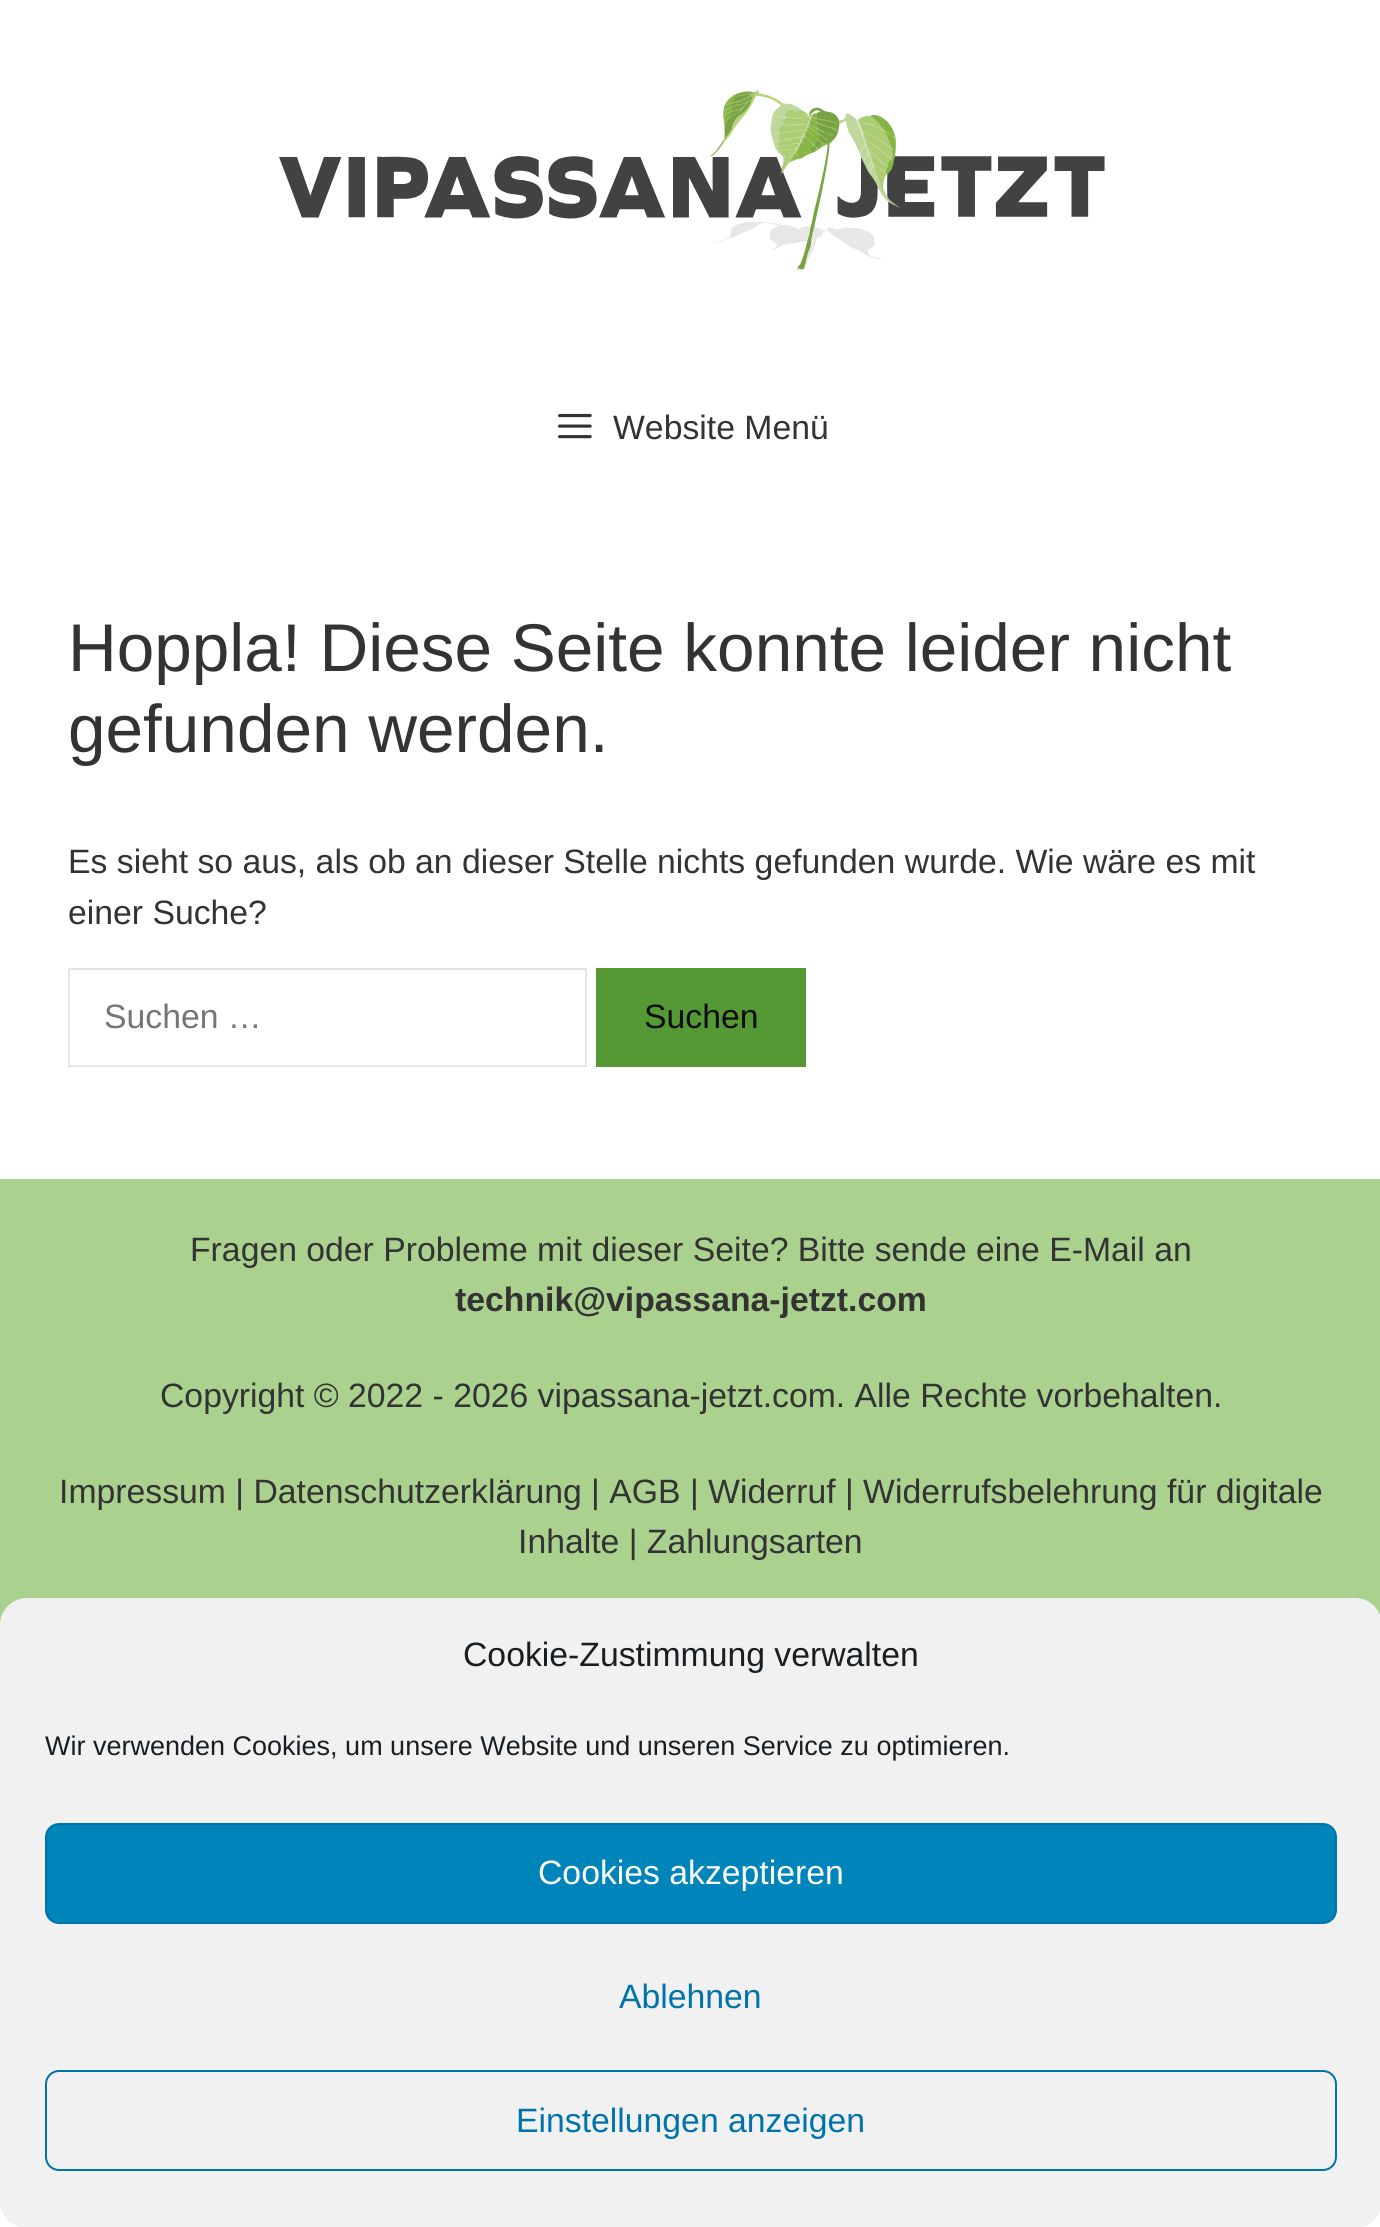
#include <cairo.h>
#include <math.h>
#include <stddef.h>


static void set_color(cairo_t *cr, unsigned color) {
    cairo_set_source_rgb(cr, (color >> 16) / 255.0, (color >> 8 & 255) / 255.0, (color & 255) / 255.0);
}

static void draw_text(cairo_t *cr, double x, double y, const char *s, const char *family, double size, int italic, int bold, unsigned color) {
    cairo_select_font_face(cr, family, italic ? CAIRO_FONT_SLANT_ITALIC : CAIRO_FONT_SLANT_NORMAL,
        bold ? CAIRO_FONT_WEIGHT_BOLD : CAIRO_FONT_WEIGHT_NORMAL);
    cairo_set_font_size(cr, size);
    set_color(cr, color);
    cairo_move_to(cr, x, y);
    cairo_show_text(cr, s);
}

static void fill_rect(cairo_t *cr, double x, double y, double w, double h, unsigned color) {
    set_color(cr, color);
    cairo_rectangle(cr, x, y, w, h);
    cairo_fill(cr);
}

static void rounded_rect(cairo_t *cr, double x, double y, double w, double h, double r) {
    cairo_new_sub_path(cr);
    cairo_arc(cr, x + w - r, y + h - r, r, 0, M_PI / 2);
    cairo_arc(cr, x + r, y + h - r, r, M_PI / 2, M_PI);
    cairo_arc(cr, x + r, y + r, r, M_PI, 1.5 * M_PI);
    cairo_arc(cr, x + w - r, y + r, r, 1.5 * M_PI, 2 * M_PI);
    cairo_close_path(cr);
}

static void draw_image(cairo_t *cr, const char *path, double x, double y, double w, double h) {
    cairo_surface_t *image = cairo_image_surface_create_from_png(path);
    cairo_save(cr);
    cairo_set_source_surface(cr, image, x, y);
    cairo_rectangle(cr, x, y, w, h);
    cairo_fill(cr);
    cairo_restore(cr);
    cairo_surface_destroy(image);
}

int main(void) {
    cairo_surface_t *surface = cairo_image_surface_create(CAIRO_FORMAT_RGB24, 1380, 2227);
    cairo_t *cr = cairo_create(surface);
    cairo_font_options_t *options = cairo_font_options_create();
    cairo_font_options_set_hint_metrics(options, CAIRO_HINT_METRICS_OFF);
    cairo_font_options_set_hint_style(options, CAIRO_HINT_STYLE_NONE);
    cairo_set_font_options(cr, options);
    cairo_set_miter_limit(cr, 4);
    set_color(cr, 0xFFFFFF);
    cairo_paint(cr);
    draw_image(cr, "assets/img1.png", 279, 90, 826, 180);
    draw_image(cr, "assets/img2.png", 558, 413, 34, 26);
    draw_text(cr, 613, 439, "Website Menü", "Liberation Sans", 33.75, 0, 0, 0x333333);
    draw_text(cr, 68, 671, "Hoppla! Diese Seite konnte leider nicht", "Liberation Sans", 67.5, 0, 0, 0x333333);
    draw_text(cr, 68, 752, "gefunden werden.", "Liberation Sans", 67.5, 0, 0, 0x333333);
    draw_text(cr, 68, 873, "Es sieht so aus, als ob an dieser Stelle nichts gefunden wurde. Wie wäre es mit", "Liberation Sans", 33.75, 0, 0, 0x333333);
    draw_text(cr, 68, 924, "einer Suche?", "Liberation Sans", 33.75, 0, 0, 0x333333);
    cairo_rectangle(cr, 69, 969, 517, 97);
    set_color(cr, 0xE5E5E5);
    cairo_stroke(cr);
    draw_text(cr, 104, 1028, "Suchen …", "Liberation Sans", 33.75, 0, 0, 0x757575);
    fill_rect(cr, 596, 968, 210, 99, 0x559934);
    draw_text(cr, 644, 1028, "Suchen", "Liberation Sans", 33.75, 0, 0, 0x0C0C0C);
    fill_rect(cr, 0, 1179, 1380, 446, 0xABD18F);
    draw_text(cr, 190, 1261, "Fragen oder Probleme mit dieser Seite? Bitte sende eine E-Mail an", "Liberation Sans", 33.75, 0, 0, 0x333333);
    draw_text(cr, 455, 1311, "technik@vipassana-jetzt.com", "Liberation Sans", 33.75, 0, 1, 0x333333);
    draw_text(cr, 160, 1407, "Copyright © 2022 - 2026 vipassana-jetzt.com. Alle Rechte vorbehalten.", "Liberation Sans", 33.75, 0, 0, 0x333333);
    draw_text(cr, 59, 1503, "Impressum | Datenschutzerklärung | AGB | Widerruf | Widerrufsbelehrung für digitale", "Liberation Sans", 33.75, 0, 0, 0x333333);
    draw_text(cr, 518, 1553, "Inhalte | Zahlungsarten", "Liberation Sans", 33.75, 0, 0, 0x333333);
    set_color(cr, 0xF1F1F1);
    rounded_rect(cr, 0, 1598, 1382, 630, 27);
    cairo_fill(cr);
    draw_text(cr, 463, 1666, "Cookie-Zustimmung verwalten", "Liberation Sans", 33.75, 0, 0, 0x191E23);
    draw_text(cr, 45, 1755, "Wir verwenden Cookies, um unsere Website und unseren Service zu optimieren.", "Liberation Sans", 27, 0, 0, 0x191E23);
    set_color(cr, 0x0085BA);
    rounded_rect(cr, 46, 1824, 1290, 99, 13);
    cairo_fill_preserve(cr);
    set_color(cr, 0x0073AA);
    cairo_stroke(cr);
    draw_text(cr, 538, 1884, "Cookies akzeptieren", "Liberation Sans", 33.75, 0, 0, 0xFFFFFF);
    draw_text(cr, 619, 2008, "Ablehnen", "Liberation Sans", 33.75, 0, 0, 0x0073AA);
    rounded_rect(cr, 46, 2071, 1290, 99, 13);
    cairo_stroke(cr);
    draw_text(cr, 516, 2132, "Einstellungen anzeigen", "Liberation Sans", 33.75, 0, 0, 0x0073AA);
    cairo_surface_write_to_png(surface, "output.png");
    cairo_font_options_destroy(options);
    cairo_destroy(cr);
    cairo_surface_destroy(surface);
    return 0;
}
